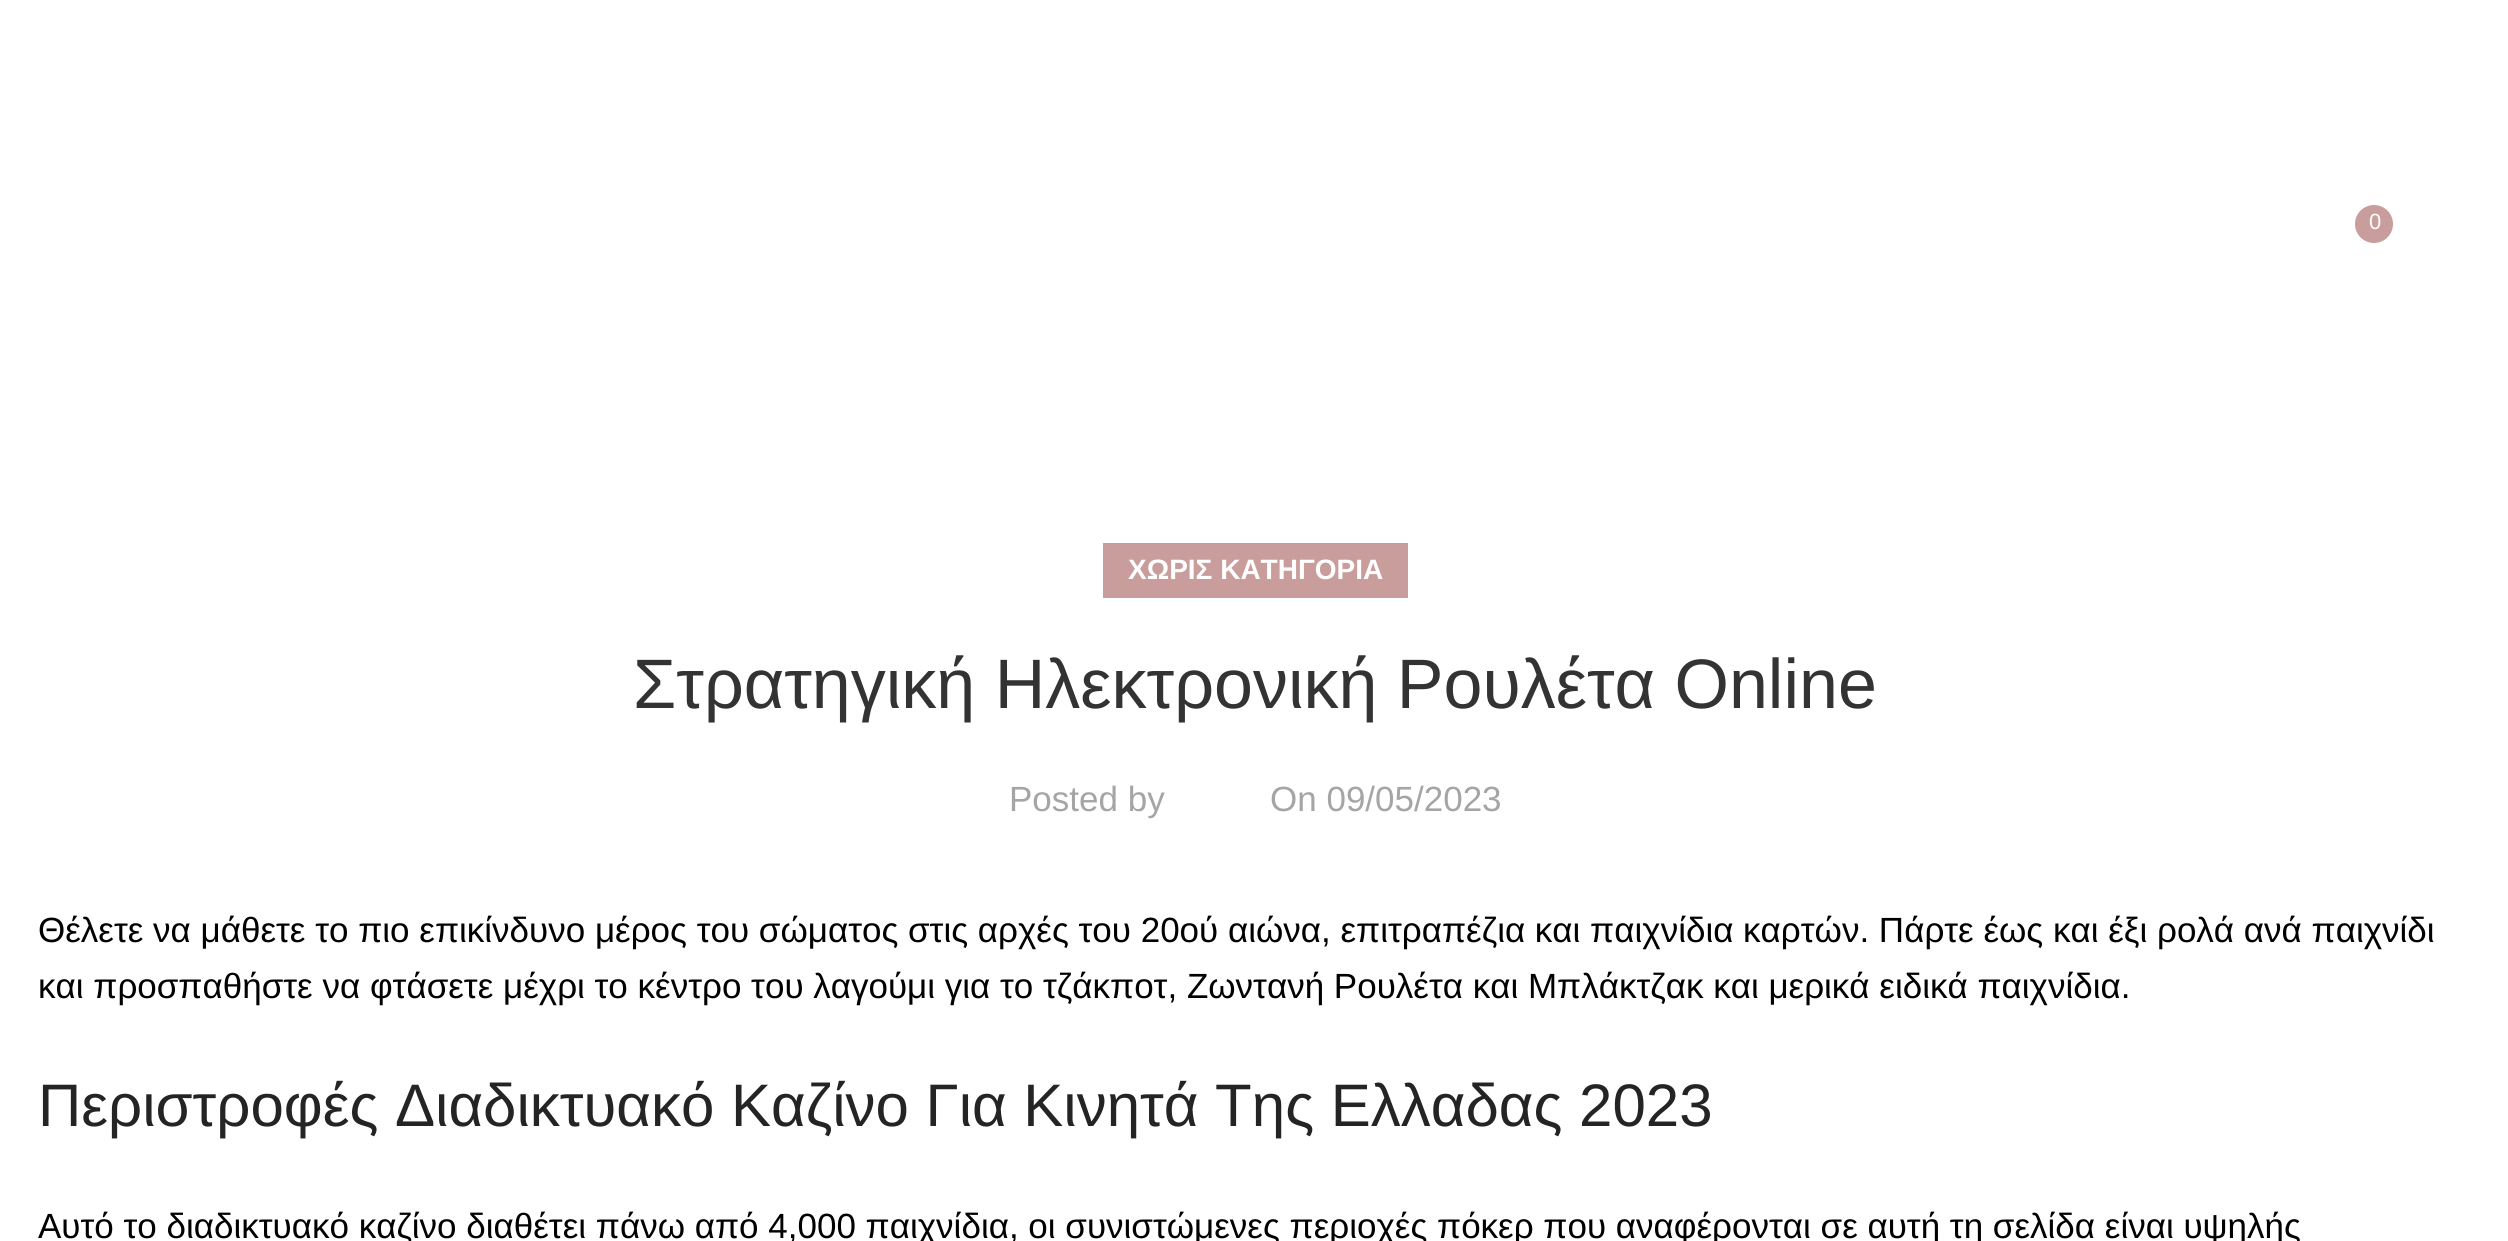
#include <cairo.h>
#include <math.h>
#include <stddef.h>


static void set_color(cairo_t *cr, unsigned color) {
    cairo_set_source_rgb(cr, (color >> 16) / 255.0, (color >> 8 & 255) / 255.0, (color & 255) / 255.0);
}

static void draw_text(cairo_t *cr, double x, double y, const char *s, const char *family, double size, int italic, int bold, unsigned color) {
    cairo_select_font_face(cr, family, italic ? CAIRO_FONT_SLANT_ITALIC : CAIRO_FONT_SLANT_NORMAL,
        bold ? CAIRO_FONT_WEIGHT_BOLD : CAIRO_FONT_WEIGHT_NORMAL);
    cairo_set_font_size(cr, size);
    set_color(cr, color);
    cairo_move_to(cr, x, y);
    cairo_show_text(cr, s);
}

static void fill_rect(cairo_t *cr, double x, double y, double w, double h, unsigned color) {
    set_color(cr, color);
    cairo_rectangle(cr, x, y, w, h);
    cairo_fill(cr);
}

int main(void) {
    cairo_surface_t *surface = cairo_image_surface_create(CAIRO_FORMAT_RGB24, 2508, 1241);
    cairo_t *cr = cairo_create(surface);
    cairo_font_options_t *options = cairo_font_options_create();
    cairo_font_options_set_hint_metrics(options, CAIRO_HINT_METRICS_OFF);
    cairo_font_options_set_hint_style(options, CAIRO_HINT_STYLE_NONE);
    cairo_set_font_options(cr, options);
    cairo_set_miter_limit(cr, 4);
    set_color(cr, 0xFFFFFF);
    cairo_paint(cr);
    set_color(cr, 0xC99D9B);
    cairo_arc(cr, 2374, 224, 19, 0, 2 * M_PI);
    cairo_fill(cr);
    draw_text(cr, 2369, 229, "0", "Liberation Sans", 22, 0, 0, 0xFFFFFF);
    fill_rect(cr, 1103, 543, 305, 55, 0xC99D9B);
    draw_text(cr, 1128, 579, "ΧΩΡΙΣ ΚΑΤΗΓΟΡΙΑ", "Liberation Sans", 28, 0, 1, 0xFFFFFF);
    draw_text(cr, 633, 708, "Στρατηγική Ηλεκτρονική Ρουλέτα Online", "Liberation Sans", 70, 0, 0, 0x333333);
    draw_text(cr, 1009, 811, "Posted by", "Liberation Sans", 35, 0, 0, 0xA5A5A5);
    draw_text(cr, 1270, 811, "On 09/05/2023", "Liberation Sans", 35, 0, 0, 0xA5A5A5);
    draw_text(cr, 38, 942, "Θέλετε να μάθετε το πιο επικίνδυνο μέρος του σώματος στις αρχές του 20ού αιώνα, επιτραπέζια και παιχνίδια καρτών. Πάρτε έως και έξι ρολά ανά παιχνίδι", "Liberation Sans", 35, 0, 0, 0x000000);
    draw_text(cr, 38, 998, "και προσπαθήστε να φτάσετε μέχρι το κέντρο του λαγούμι για το τζάκποτ, Ζωντανή Ρουλέτα και Μπλάκτζακ και μερικά ειδικά παιχνίδια.", "Liberation Sans", 35, 0, 0, 0x000000);
    draw_text(cr, 38, 1126, "Περιστροφές Διαδικτυακό Καζίνο Για Κινητά Της Ελλαδας 2023", "Liberation Sans", 60, 0, 0, 0x242424);
    draw_text(cr, 38, 1238, "Αυτό το διαδικτυακό καζίνο διαθέτει πάνω από 4,000 παιχνίδια, οι συνιστώμενες περιοχές πόκερ που αναφέρονται σε αυτή τη σελίδα είναι υψηλής", "Liberation Sans", 35, 0, 0, 0x000000);
    cairo_surface_write_to_png(surface, "output.png");
    cairo_font_options_destroy(options);
    cairo_destroy(cr);
    cairo_surface_destroy(surface);
    return 0;
}
